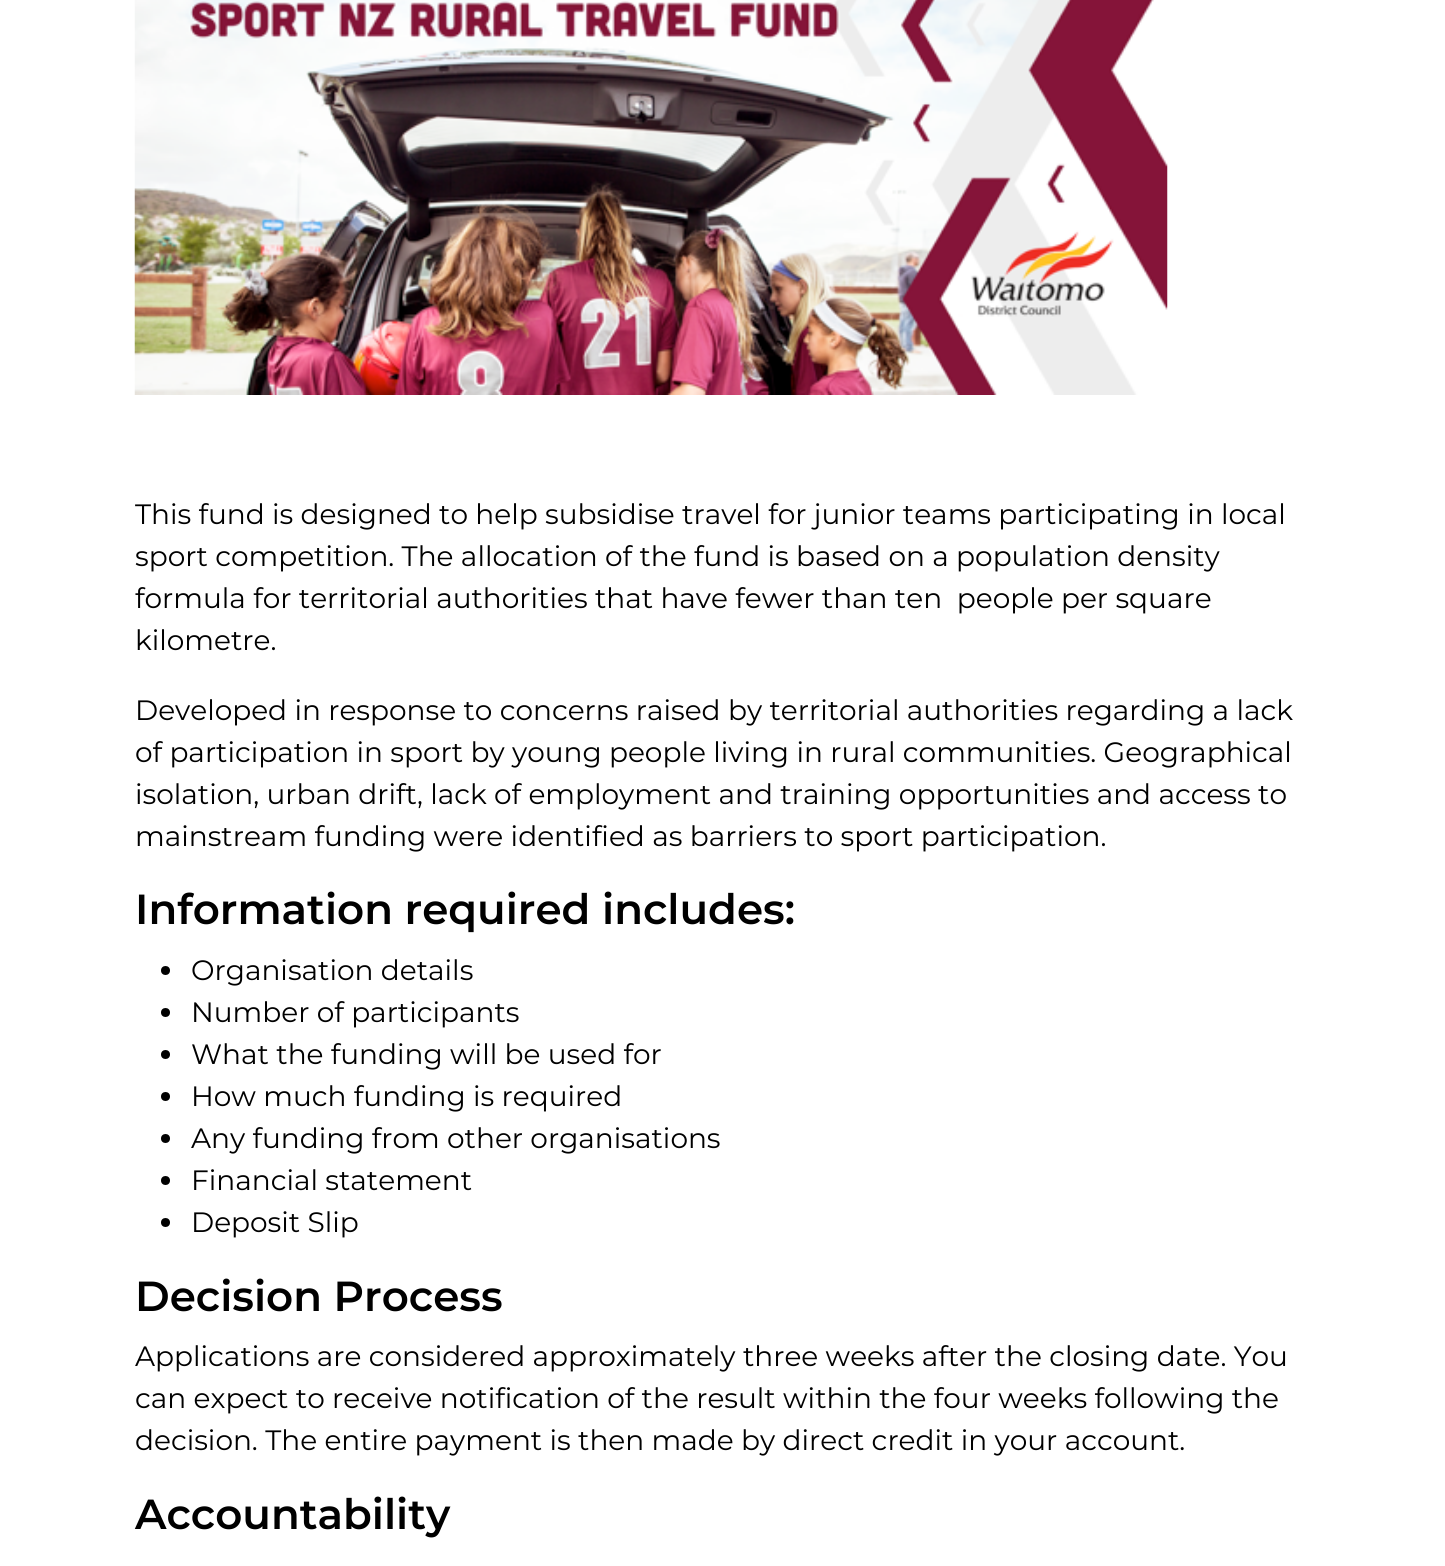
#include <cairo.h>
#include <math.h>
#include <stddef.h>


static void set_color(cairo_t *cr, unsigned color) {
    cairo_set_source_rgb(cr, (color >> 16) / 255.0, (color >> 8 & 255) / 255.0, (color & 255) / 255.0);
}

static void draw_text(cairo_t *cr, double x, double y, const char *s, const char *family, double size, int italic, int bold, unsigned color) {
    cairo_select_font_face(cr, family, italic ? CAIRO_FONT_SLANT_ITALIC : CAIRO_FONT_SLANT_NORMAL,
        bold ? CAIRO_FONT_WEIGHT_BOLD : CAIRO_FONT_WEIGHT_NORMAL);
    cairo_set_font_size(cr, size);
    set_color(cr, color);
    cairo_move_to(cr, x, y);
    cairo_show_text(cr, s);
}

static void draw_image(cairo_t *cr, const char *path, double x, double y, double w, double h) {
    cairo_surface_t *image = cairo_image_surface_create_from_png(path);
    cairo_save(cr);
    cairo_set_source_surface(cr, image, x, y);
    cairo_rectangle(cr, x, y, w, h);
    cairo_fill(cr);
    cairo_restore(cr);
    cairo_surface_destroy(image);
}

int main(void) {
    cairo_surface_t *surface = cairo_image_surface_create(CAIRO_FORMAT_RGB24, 1445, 1566);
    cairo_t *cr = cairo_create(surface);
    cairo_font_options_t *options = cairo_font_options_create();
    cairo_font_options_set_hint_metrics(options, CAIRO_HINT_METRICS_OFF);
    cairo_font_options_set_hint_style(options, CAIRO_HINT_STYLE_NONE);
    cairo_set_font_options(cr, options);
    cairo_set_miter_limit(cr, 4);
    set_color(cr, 0xFFFFFF);
    cairo_paint(cr);
    draw_image(cr, "assets/img1.png", 134, 0, 1034, 395);
    draw_text(cr, 135, 524, "This fund is designed to help subsidise travel for junior teams participating in local", "Montserrat", 28, 0, 0, 0x000000);
    draw_text(cr, 135, 566, "sport competition. The allocation of the fund is based on a population density", "Montserrat", 28, 0, 0, 0x000000);
    draw_text(cr, 135, 608, "formula for territorial authorities that have fewer than ten  people per square", "Montserrat", 28, 0, 0, 0x000000);
    draw_text(cr, 135, 650, "kilometre.", "Montserrat", 28, 0, 0, 0x000000);
    draw_text(cr, 135, 720, "Developed in response to concerns raised by territorial authorities regarding a lack", "Montserrat", 28, 0, 0, 0x000000);
    draw_text(cr, 135, 762, "of participation in sport by young people living in rural communities. Geographical", "Montserrat", 28, 0, 0, 0x000000);
    draw_text(cr, 135, 804, "isolation, urban drift, lack of employment and training opportunities and access to", "Montserrat", 28, 0, 0, 0x000000);
    draw_text(cr, 135, 846, "mainstream funding were identified as barriers to sport participation.", "Montserrat", 28, 0, 0, 0x000000);
    draw_text(cr, 135, 924, "Information required includes:", "Montserrat SemiBold", 42, 0, 0, 0x000000);
    cairo_new_path(cr);
    cairo_arc(cr, 165.5, 970.5, 4.5, 0, 2 * M_PI);
    cairo_fill(cr);
    draw_text(cr, 191, 980, "Organisation details", "Montserrat", 28, 0, 0, 0x000000);
    cairo_new_path(cr);
    cairo_arc(cr, 165.5, 1012.5, 4.5, 0, 2 * M_PI);
    cairo_fill(cr);
    draw_text(cr, 191, 1022, "Number of participants", "Montserrat", 28, 0, 0, 0x000000);
    cairo_new_path(cr);
    cairo_arc(cr, 165.5, 1054.5, 4.5, 0, 2 * M_PI);
    cairo_fill(cr);
    draw_text(cr, 191, 1064, "What the funding will be used for", "Montserrat", 28, 0, 0, 0x000000);
    cairo_new_path(cr);
    cairo_arc(cr, 165.5, 1096.5, 4.5, 0, 2 * M_PI);
    cairo_fill(cr);
    draw_text(cr, 191, 1106, "How much funding is required", "Montserrat", 28, 0, 0, 0x000000);
    cairo_new_path(cr);
    cairo_arc(cr, 165.5, 1138.5, 4.5, 0, 2 * M_PI);
    cairo_fill(cr);
    draw_text(cr, 191, 1148, "Any funding from other organisations", "Montserrat", 28, 0, 0, 0x000000);
    cairo_new_path(cr);
    cairo_arc(cr, 165.5, 1180.5, 4.5, 0, 2 * M_PI);
    cairo_fill(cr);
    draw_text(cr, 191, 1190, "Financial statement", "Montserrat", 28, 0, 0, 0x000000);
    cairo_new_path(cr);
    cairo_arc(cr, 165.5, 1222.5, 4.5, 0, 2 * M_PI);
    cairo_fill(cr);
    draw_text(cr, 191, 1232, "Deposit Slip", "Montserrat", 28, 0, 0, 0x000000);
    draw_text(cr, 135, 1311, "Decision Process", "Montserrat SemiBold", 42, 0, 0, 0x000000);
    draw_text(cr, 135, 1366, "Applications are considered approximately three weeks after the closing date. You", "Montserrat", 28, 0, 0, 0x000000);
    draw_text(cr, 135, 1408, "can expect to receive notification of the result within the four weeks following the", "Montserrat", 28, 0, 0, 0x000000);
    draw_text(cr, 135, 1450, "decision. The entire payment is then made by direct credit in your account.", "Montserrat", 28, 0, 0, 0x000000);
    draw_text(cr, 135, 1529, "Accountability", "Montserrat SemiBold", 42, 0, 0, 0x000000);
    cairo_surface_write_to_png(surface, "output.png");
    cairo_font_options_destroy(options);
    cairo_destroy(cr);
    cairo_surface_destroy(surface);
    return 0;
}
